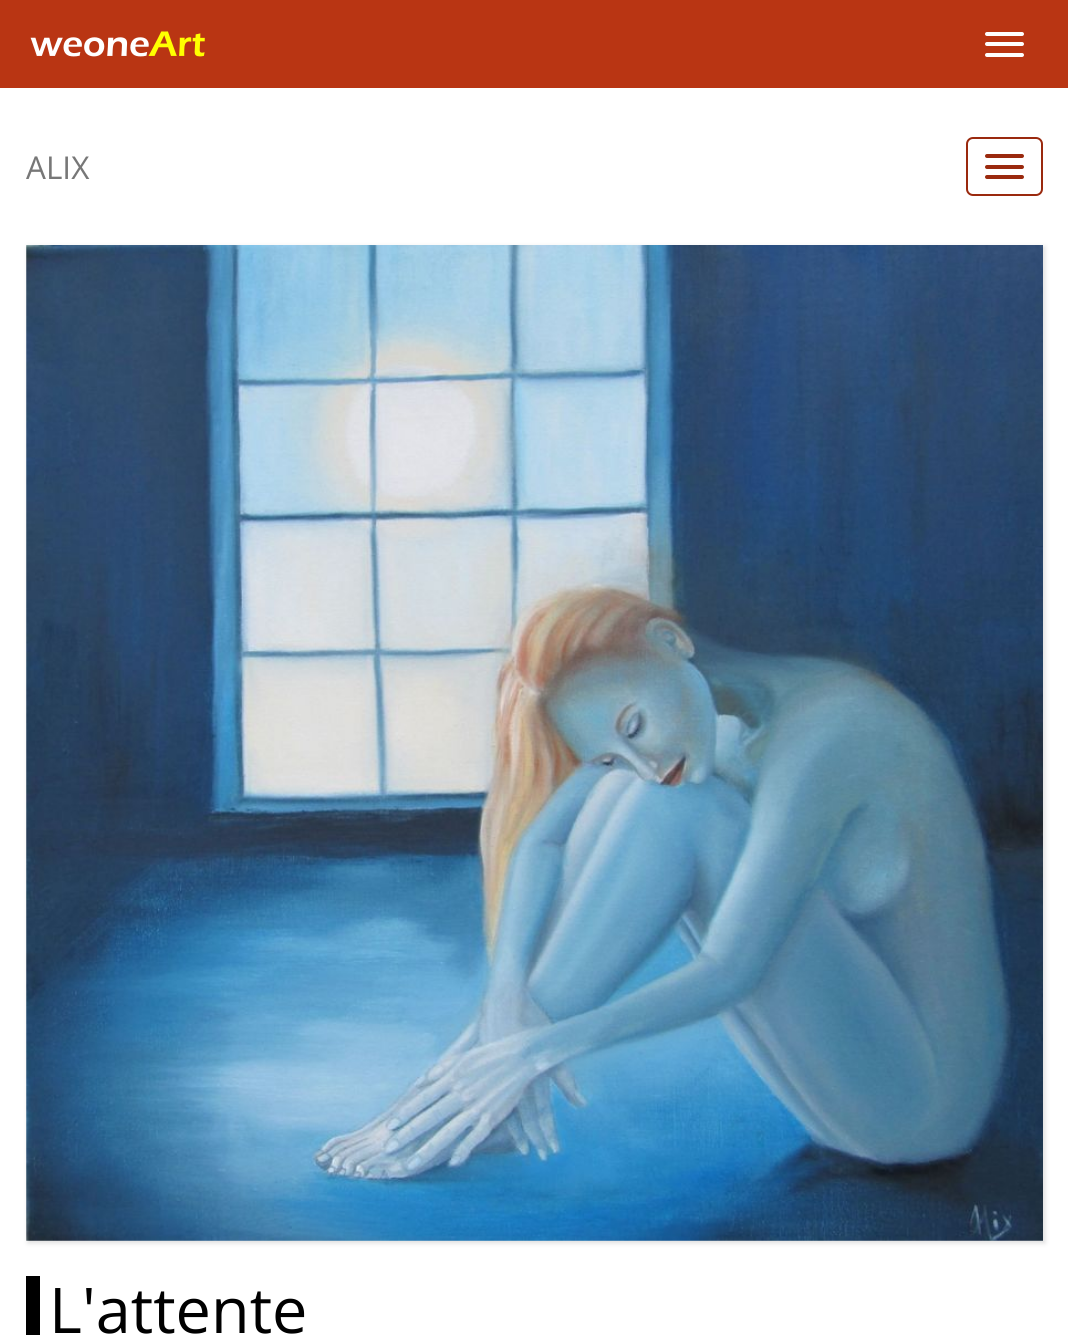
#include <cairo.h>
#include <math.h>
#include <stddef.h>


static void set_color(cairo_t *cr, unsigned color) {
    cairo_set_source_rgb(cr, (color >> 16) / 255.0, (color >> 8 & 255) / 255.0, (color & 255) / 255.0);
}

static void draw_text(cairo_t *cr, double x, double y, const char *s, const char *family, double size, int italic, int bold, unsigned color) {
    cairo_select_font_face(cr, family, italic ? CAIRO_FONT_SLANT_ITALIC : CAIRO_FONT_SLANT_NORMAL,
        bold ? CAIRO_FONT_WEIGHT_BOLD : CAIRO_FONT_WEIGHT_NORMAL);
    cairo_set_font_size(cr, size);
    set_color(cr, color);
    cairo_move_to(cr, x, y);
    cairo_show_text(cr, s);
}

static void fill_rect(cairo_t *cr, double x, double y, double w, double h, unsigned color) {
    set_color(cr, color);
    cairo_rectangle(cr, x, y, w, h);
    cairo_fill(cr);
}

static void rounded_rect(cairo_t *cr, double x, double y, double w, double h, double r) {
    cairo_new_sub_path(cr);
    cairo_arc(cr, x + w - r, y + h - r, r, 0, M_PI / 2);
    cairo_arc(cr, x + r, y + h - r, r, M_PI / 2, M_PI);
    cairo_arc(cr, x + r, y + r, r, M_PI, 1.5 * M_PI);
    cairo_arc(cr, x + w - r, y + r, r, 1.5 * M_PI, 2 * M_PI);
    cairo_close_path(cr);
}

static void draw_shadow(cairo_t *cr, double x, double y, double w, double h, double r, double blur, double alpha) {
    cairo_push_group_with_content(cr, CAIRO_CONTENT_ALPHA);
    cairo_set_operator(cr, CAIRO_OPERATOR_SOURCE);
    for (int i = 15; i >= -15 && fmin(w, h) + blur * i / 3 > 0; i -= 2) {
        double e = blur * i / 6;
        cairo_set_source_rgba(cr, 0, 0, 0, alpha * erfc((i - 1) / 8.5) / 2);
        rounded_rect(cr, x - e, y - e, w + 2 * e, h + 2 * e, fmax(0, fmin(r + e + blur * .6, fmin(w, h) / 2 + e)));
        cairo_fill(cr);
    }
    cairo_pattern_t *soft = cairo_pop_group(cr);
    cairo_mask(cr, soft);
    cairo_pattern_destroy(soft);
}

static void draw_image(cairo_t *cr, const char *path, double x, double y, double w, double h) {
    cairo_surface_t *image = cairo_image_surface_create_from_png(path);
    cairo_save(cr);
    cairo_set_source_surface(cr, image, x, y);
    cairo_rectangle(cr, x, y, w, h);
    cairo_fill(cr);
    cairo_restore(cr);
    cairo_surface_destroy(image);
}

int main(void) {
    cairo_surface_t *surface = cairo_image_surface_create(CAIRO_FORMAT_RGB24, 1068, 1335);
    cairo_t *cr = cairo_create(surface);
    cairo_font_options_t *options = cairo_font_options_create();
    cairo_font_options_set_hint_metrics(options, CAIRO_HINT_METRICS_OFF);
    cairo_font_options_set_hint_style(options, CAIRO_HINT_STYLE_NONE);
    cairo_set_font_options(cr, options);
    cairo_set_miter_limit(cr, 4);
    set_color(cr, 0xFFFFFF);
    cairo_paint(cr);
    fill_rect(cr, 0, 0, 1068, 88, 0xB93513);
    draw_image(cr, "assets/img1.png", 30, 31, 175, 26);
    set_color(cr, 0xFFFFFF);
    rounded_rect(cr, 985, 32, 39, 4, 2);
    cairo_fill(cr);
    rounded_rect(cr, 985, 42, 39, 4, 2);
    cairo_fill(cr);
    rounded_rect(cr, 985, 53, 39, 4, 2);
    cairo_fill(cr);
    draw_text(cr, 26, 179, "ALIX", "Open Sans", 31.5, 0, 0, 0x777777);
    rounded_rect(cr, 967, 138, 75, 57, 6);
    set_color(cr, 0x9A290E);
    cairo_stroke(cr);
    rounded_rect(cr, 985, 154, 39, 4, 2);
    cairo_fill(cr);
    rounded_rect(cr, 985, 165, 39, 4, 2);
    cairo_fill(cr);
    rounded_rect(cr, 985, 175, 39, 4, 2);
    cairo_fill(cr);
    set_color(cr, 0xDDDDDD);
    draw_shadow(cr, 28, 247, 1017, 996, 0, 2.5, 1);
    draw_image(cr, "assets/img2.png", 26, 245, 1017, 996);
    fill_rect(cr, 26, 1276, 14, 59, 0x000000);
    draw_text(cr, 49, 1333, "L'attente", "Open Sans", 63, 0, 0, 0x000000);
    cairo_surface_write_to_png(surface, "output.png");
    cairo_font_options_destroy(options);
    cairo_destroy(cr);
    cairo_surface_destroy(surface);
    return 0;
}
